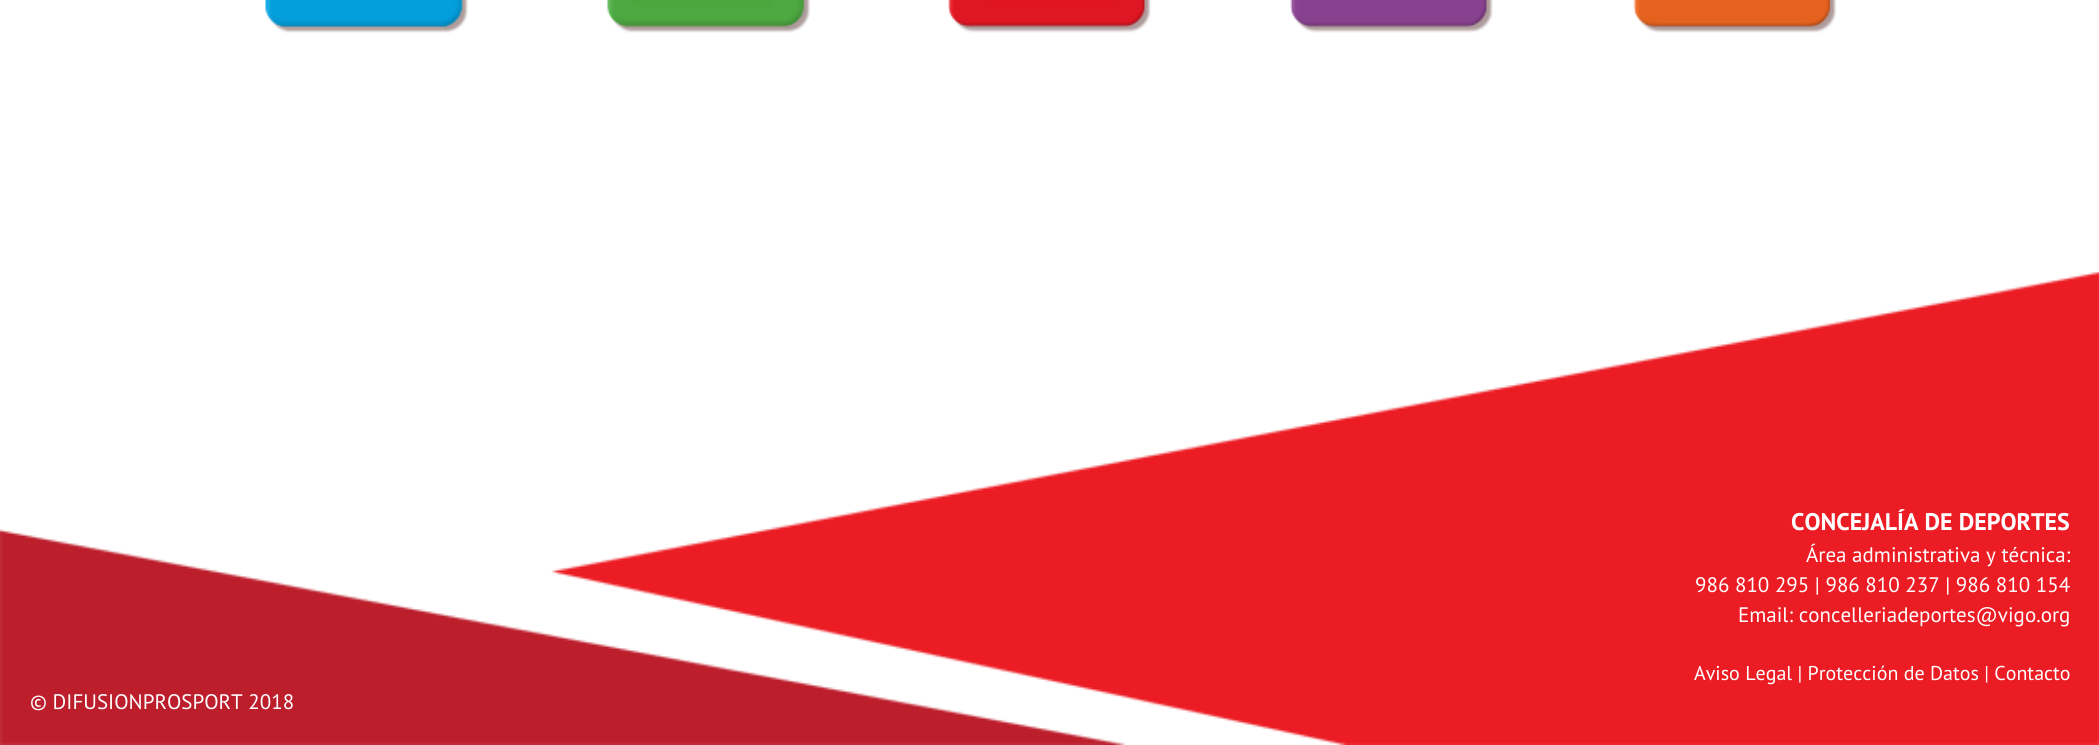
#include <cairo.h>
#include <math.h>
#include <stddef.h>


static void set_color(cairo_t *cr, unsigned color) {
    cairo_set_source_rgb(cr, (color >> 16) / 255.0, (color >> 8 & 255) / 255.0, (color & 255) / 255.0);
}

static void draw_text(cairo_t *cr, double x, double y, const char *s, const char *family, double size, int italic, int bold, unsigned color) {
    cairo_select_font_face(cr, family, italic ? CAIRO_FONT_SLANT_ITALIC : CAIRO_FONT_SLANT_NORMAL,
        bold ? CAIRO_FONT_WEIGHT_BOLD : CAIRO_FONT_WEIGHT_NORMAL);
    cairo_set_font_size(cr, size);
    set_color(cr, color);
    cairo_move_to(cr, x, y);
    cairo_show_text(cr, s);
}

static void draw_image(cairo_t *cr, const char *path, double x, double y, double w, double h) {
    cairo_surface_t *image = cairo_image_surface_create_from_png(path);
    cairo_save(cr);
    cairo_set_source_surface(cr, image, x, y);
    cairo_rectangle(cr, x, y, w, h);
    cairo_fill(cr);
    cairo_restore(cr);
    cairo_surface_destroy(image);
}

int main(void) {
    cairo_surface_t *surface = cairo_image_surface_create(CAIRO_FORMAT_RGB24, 2099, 745);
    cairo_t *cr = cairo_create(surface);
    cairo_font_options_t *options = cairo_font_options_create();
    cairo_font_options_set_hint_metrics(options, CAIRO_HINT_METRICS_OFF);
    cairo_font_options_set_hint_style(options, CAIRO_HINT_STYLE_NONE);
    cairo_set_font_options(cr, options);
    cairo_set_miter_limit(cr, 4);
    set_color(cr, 0xFFFFFF);
    cairo_paint(cr);
    draw_image(cr, "assets/img1.png", 265, 0, 203, 33);
    draw_image(cr, "assets/img2.png", 607, 0, 203, 33);
    draw_image(cr, "assets/img3.png", 948, 0, 203, 33);
    draw_image(cr, "assets/img4.png", 1290, 0, 203, 33);
    draw_image(cr, "assets/img5.png", 1633, 0, 203, 33);
    draw_image(cr, "assets/img6.png", 0, 272, 2099, 473);
    draw_text(cr, 1791, 530, "CONCEJALÍA DE DEPORTES", "PT Sans", 24, 0, 1, 0xFFFFFF);
    draw_text(cr, 1806, 562, "Área administrativa y técnica:", "PT Sans", 21, 0, 0, 0xFFFFFF);
    draw_text(cr, 1695, 592, "986 810 295 | 986 810 237 | 986 810 154", "PT Sans", 21, 0, 0, 0xFFFFFF);
    draw_text(cr, 1738, 622, "Email: concelleriadeportes@vigo.org", "PT Sans", 21, 0, 0, 0xFFFFFF);
    draw_text(cr, 1694, 680, "Aviso Legal | Protección de Datos | Contacto", "PT Sans", 20, 0, 0, 0xFFFFFF);
    draw_text(cr, 30, 709, "© DIFUSIONPROSPORT 2018", "PT Sans", 21, 0, 0, 0xFFFFFF);
    cairo_surface_write_to_png(surface, "output.png");
    cairo_font_options_destroy(options);
    cairo_destroy(cr);
    cairo_surface_destroy(surface);
    return 0;
}
